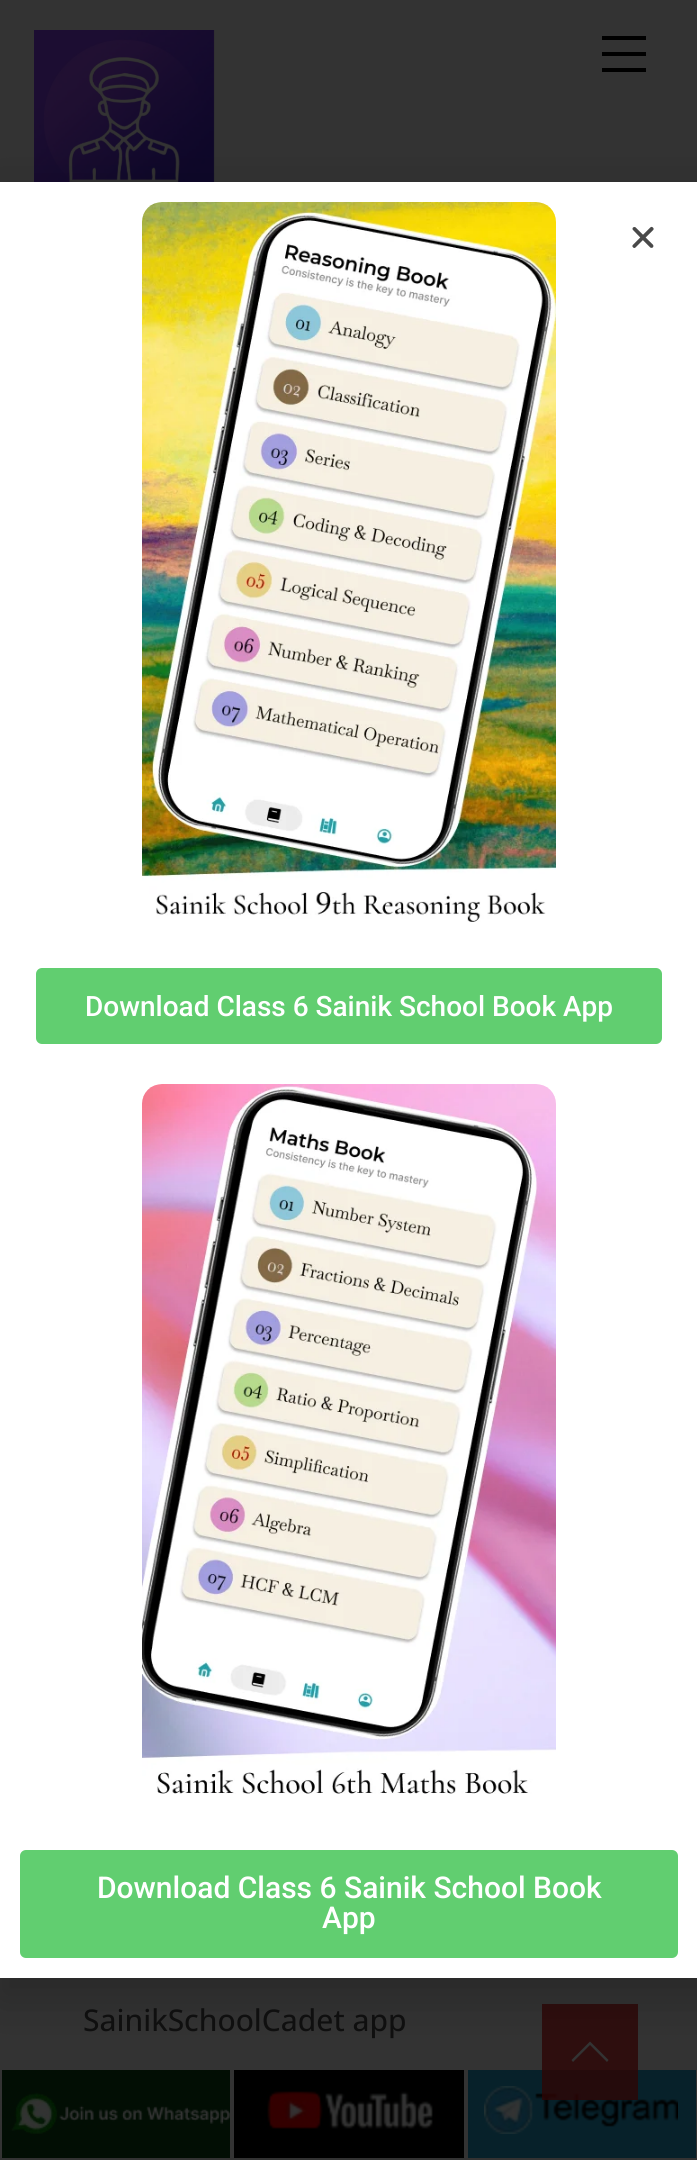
#include <cairo.h>
#include <math.h>
#include <stddef.h>


static void set_color(cairo_t *cr, unsigned color) {
    cairo_set_source_rgb(cr, (color >> 16) / 255.0, (color >> 8 & 255) / 255.0, (color & 255) / 255.0);
}

static void draw_text(cairo_t *cr, double x, double y, const char *s, const char *family, double size, int italic, int bold, unsigned color) {
    cairo_select_font_face(cr, family, italic ? CAIRO_FONT_SLANT_ITALIC : CAIRO_FONT_SLANT_NORMAL,
        bold ? CAIRO_FONT_WEIGHT_BOLD : CAIRO_FONT_WEIGHT_NORMAL);
    cairo_set_font_size(cr, size);
    set_color(cr, color);
    cairo_move_to(cr, x, y);
    cairo_show_text(cr, s);
}

static void fill_rect(cairo_t *cr, double x, double y, double w, double h, unsigned color) {
    set_color(cr, color);
    cairo_rectangle(cr, x, y, w, h);
    cairo_fill(cr);
}

static void rounded_rect(cairo_t *cr, double x, double y, double w, double h, double r) {
    cairo_new_sub_path(cr);
    cairo_arc(cr, x + w - r, y + h - r, r, 0, M_PI / 2);
    cairo_arc(cr, x + r, y + h - r, r, M_PI / 2, M_PI);
    cairo_arc(cr, x + r, y + r, r, M_PI, 1.5 * M_PI);
    cairo_arc(cr, x + w - r, y + r, r, 1.5 * M_PI, 2 * M_PI);
    cairo_close_path(cr);
}

static void draw_shadow(cairo_t *cr, double x, double y, double w, double h, double r, double blur, double alpha) {
    cairo_push_group_with_content(cr, CAIRO_CONTENT_ALPHA);
    cairo_set_operator(cr, CAIRO_OPERATOR_SOURCE);
    for (int i = 15; i >= -15 && fmin(w, h) + blur * i / 3 > 0; i -= 2) {
        double e = blur * i / 6;
        cairo_set_source_rgba(cr, 0, 0, 0, alpha * erfc((i - 1) / 8.5) / 2);
        rounded_rect(cr, x - e, y - e, w + 2 * e, h + 2 * e, fmax(0, fmin(r + e + blur * .6, fmin(w, h) / 2 + e)));
        cairo_fill(cr);
    }
    cairo_pattern_t *soft = cairo_pop_group(cr);
    cairo_mask(cr, soft);
    cairo_pattern_destroy(soft);
}

static void draw_image(cairo_t *cr, const char *path, double x, double y, double w, double h) {
    cairo_surface_t *image = cairo_image_surface_create_from_png(path);
    cairo_save(cr);
    cairo_set_source_surface(cr, image, x, y);
    cairo_rectangle(cr, x, y, w, h);
    cairo_fill(cr);
    cairo_restore(cr);
    cairo_surface_destroy(image);
}

int main(void) {
    cairo_surface_t *surface = cairo_image_surface_create(CAIRO_FORMAT_RGB24, 697, 2160);
    cairo_t *cr = cairo_create(surface);
    cairo_font_options_t *options = cairo_font_options_create();
    cairo_font_options_set_hint_metrics(options, CAIRO_HINT_METRICS_OFF);
    cairo_font_options_set_hint_style(options, CAIRO_HINT_STYLE_NONE);
    cairo_set_font_options(cr, options);
    cairo_set_miter_limit(cr, 4);
    set_color(cr, 0x333333);
    cairo_paint(cr);
    draw_image(cr, "assets/img4.png", 34, 30, 181, 152);
    fill_rect(cr, 468, 2070, 228, 88, 0x07212A);
    draw_image(cr, "assets/img7.png", 484, 2086, 194, 48);
    cairo_set_source_rgba(cr, 0.176, 0.02, 0.02, 0.8);
    cairo_rectangle(cr, 542, 2004, 96, 96);
    cairo_fill(cr);
    set_color(cr, 0x333333);
    cairo_new_path(cr);
    cairo_move_to(cr, 608.5, 2060);
    cairo_line_to(cr, 590, 2041.5);
    cairo_line_to(cr, 571.5, 2060);
    cairo_line_to(cr, 573, 2062);
    cairo_line_to(cr, 590, 2045);
    cairo_line_to(cr, 607, 2062);
    cairo_close_path(cr);
    cairo_fill(cr);
    set_color(cr, 0x000000);
    draw_shadow(cr, -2, 192, 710, 1808, 0, 23, 0.2);
    fill_rect(cr, 0, 182, 697, 1796, 0xFFFFFF);
    draw_image(cr, "assets/img1.png", 632, 226, 22, 22);
    draw_image(cr, "assets/img2.png", 142, 202, 414, 720);
    set_color(cr, 0x61CE70);
    rounded_rect(cr, 36, 968, 626, 76, 6);
    cairo_fill(cr);
    draw_text(cr, 85, 1016, "Download Class 6 Sainik School Book App", "Roboto Medium", 28, 0, 0, 0xFFFFFF);
    draw_image(cr, "assets/img3.png", 142, 1084, 414, 710);
    set_color(cr, 0x61CE70);
    rounded_rect(cr, 20, 1850, 658, 108, 6);
    cairo_fill(cr);
    draw_text(cr, 97, 1898, "Download Class 6 Sainik School Book", "Roboto Medium", 30, 0, 0, 0xFFFFFF);
    draw_text(cr, 322, 1928, "App", "Roboto Medium", 30, 0, 0, 0xFFFFFF);
    fill_rect(cr, 602, 68, 44, 4, 0x000000);
    fill_rect(cr, 602, 36, 44, 4, 0x000000);
    fill_rect(cr, 602, 52, 44, 4, 0x000000);
    fill_rect(cr, 2, 2070, 228, 88, 0x020E04);
    draw_image(cr, "assets/img5.png", 11, 2092, 219, 43);
    fill_rect(cr, 234, 2070, 230, 88, 0x000000);
    draw_image(cr, "assets/img6.png", 267, 2091, 166, 38);
    draw_text(cr, 83, 2031, "SainikSchoolCadet app", "Open Sans Medium", 30, 0, 0, 0x0F0F0F);
    cairo_surface_write_to_png(surface, "output.png");
    cairo_font_options_destroy(options);
    cairo_destroy(cr);
    cairo_surface_destroy(surface);
    return 0;
}
